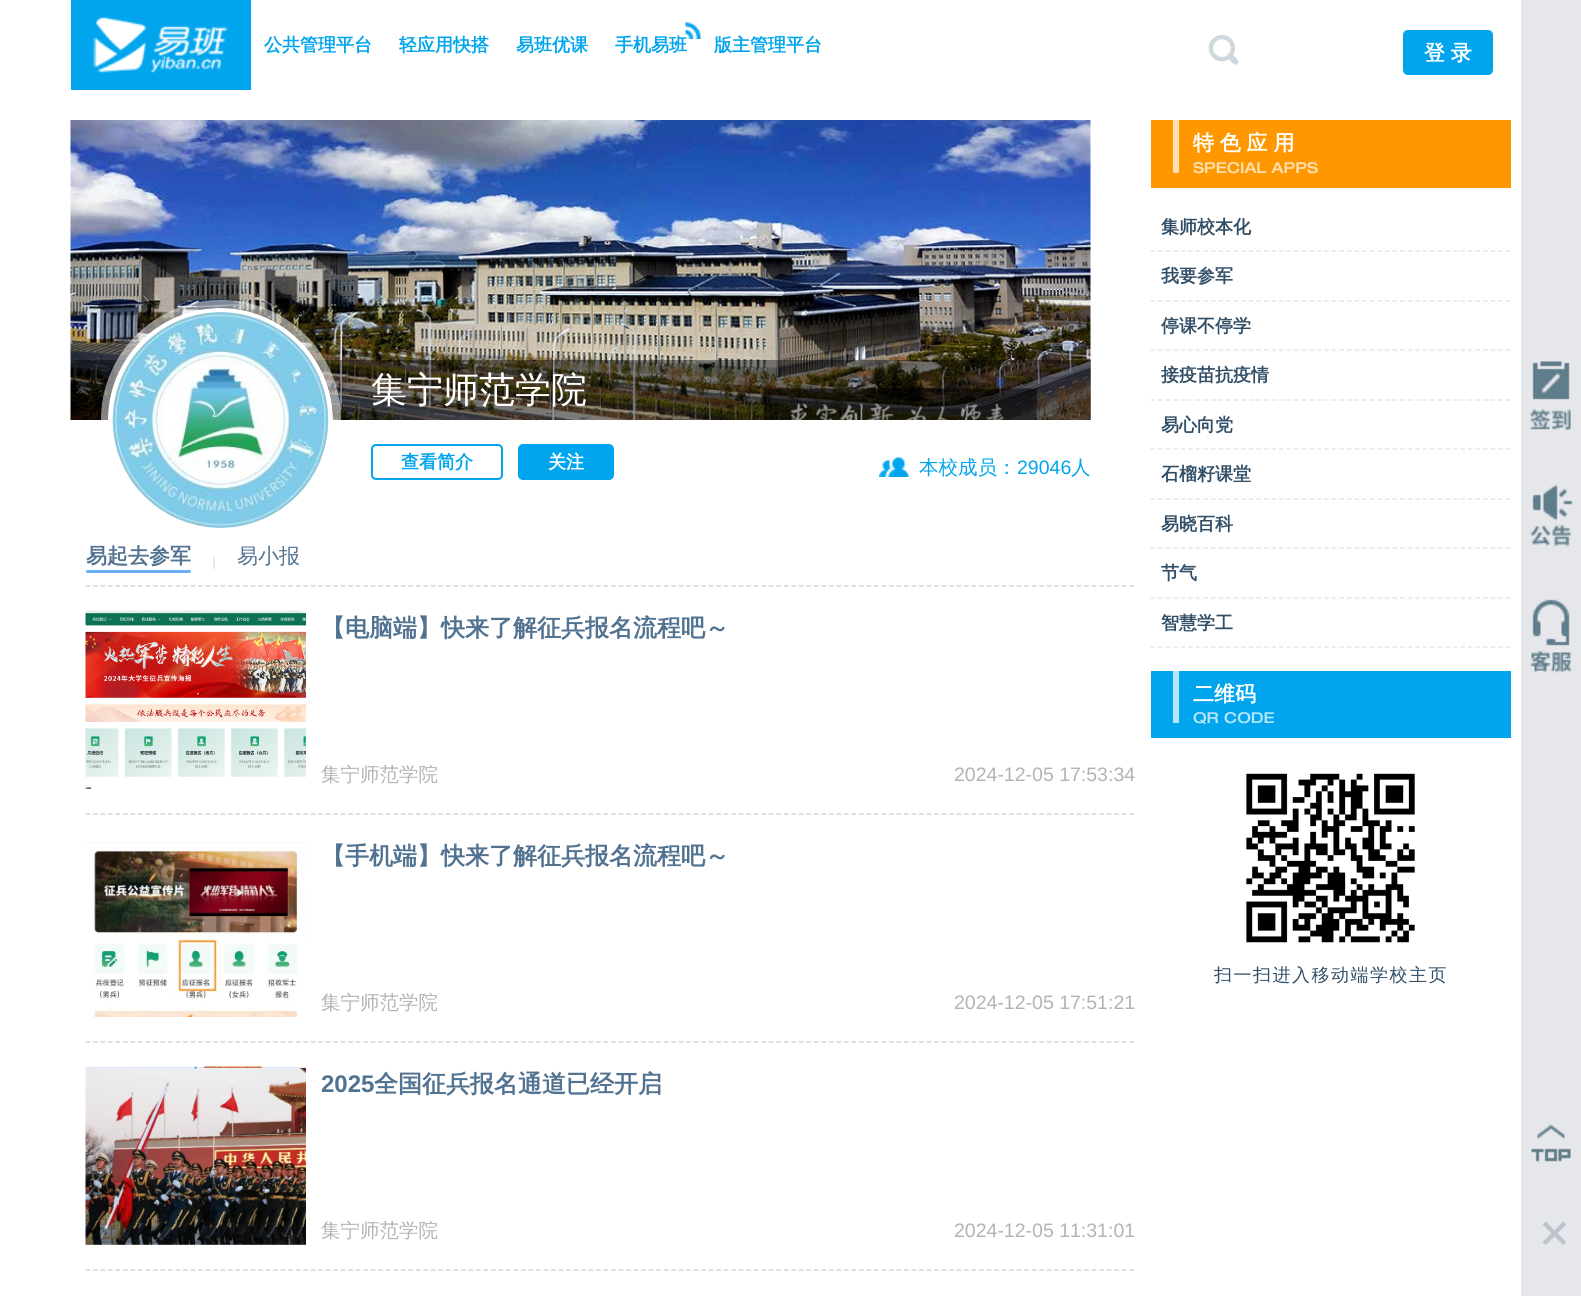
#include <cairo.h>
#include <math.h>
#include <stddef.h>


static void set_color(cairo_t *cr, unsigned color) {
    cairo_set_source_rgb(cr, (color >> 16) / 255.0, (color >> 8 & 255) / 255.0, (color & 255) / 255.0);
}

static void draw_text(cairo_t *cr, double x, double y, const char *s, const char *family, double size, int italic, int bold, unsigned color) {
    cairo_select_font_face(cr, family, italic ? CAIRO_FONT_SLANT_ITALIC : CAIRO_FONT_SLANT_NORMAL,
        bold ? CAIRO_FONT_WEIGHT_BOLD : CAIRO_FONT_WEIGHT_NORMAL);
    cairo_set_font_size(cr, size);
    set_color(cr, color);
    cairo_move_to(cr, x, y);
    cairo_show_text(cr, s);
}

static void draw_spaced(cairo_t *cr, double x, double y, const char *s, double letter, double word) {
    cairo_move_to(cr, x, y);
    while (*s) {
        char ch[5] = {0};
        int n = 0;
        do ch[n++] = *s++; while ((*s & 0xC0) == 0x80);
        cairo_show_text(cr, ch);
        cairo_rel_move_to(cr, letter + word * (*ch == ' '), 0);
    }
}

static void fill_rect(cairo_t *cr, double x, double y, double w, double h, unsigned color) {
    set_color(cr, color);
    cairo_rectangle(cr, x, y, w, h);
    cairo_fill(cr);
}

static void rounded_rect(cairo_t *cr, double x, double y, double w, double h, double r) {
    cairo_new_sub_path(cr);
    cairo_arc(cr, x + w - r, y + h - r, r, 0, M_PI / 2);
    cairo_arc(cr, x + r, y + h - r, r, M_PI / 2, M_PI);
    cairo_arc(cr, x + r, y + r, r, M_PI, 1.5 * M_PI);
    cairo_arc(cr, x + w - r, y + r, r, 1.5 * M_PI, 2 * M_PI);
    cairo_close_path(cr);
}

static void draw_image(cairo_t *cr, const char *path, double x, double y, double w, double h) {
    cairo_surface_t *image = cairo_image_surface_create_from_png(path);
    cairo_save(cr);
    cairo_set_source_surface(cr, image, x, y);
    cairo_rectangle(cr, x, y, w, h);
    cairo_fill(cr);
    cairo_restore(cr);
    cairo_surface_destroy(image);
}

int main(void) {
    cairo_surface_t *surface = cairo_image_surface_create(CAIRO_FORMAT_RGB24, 1581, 1296);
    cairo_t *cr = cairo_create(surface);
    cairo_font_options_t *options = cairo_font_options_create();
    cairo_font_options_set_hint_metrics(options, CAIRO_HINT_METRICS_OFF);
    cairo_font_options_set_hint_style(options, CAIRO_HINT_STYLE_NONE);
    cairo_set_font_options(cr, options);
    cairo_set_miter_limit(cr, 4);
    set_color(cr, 0xFFFFFF);
    cairo_paint(cr);
    fill_rect(cr, 71, 0, 180, 90, 0x00A5ED);
    draw_image(cr, "assets/img1.png", 92, 16, 137, 57);
    draw_text(cr, 264, 51, "公共管理平台", "WenQuanYi Zen Hei", 18, 0, 1, 0x00A5ED);
    draw_text(cr, 399, 51, "轻应用快搭", "WenQuanYi Zen Hei", 18, 0, 1, 0x00A5ED);
    draw_text(cr, 516, 51, "易班优课", "WenQuanYi Zen Hei", 18, 0, 1, 0x00A5ED);
    draw_text(cr, 615, 51, "手机易班", "WenQuanYi Zen Hei", 18, 0, 1, 0x00A5ED);
    draw_image(cr, "assets/img2.png", 685, 22, 16, 17);
    draw_text(cr, 714, 51, "版主管理平台", "WenQuanYi Zen Hei", 18, 0, 1, 0x00A5ED);
    draw_image(cr, "assets/img3.png", 1208, 35, 31, 30);
    rounded_rect(cr, 1403, 30, 90, 45, 5);
    cairo_fill(cr);
    cairo_set_font_size(cr, 21);
    set_color(cr, 0xFFFFFF);
    draw_spaced(cr, 1424, 60, "登 录", 0, -0.5);
    draw_image(cr, "assets/img4.png", 70, 120, 1021, 300);
    cairo_set_source_rgba(cr, 0, 0, 0, 0.4);
    cairo_rectangle(cr, 71, 360, 1020, 60);
    cairo_fill(cr);
    cairo_arc(cr, 221, 420, 116, 0, 2 * M_PI);
    cairo_set_source_rgba(cr, 1, 1, 1, 0.5);
    cairo_set_line_width(cr, 8);
    cairo_stroke(cr);
    set_color(cr, 0xFFFFFF);
    cairo_arc(cr, 220.5, 420.5, 110, 0, 2 * M_PI);
    cairo_fill_preserve(cr);
    cairo_set_line_width(cr, 5);
    cairo_stroke(cr);
    draw_image(cr, "assets/img5.png", 112, 312, 217, 216);
    draw_text(cr, 371, 402, "集宁师范学院", "WenQuanYi Zen Hei Medium", 36, 0, 0, 0xFFFFFF);
    rounded_rect(cr, 372, 445, 130, 34, 4);
    set_color(cr, 0x00A5ED);
    cairo_set_line_width(cr, 2);
    cairo_stroke(cr);
    draw_text(cr, 401, 468, "查看简介", "WenQuanYi Zen Hei", 18, 0, 1, 0x00A5ED);
    rounded_rect(cr, 519, 445, 94, 34, 4);
    cairo_fill_preserve(cr);
    cairo_stroke(cr);
    draw_text(cr, 548, 468, "关注", "WenQuanYi Zen Hei", 18, 0, 1, 0xFFFFFF);
    draw_image(cr, "assets/img6.png", 879, 457, 30, 20);
    draw_text(cr, 919, 474, "本校成员：", "WenQuanYi Zen Hei Medium", 19.5, 0, 0, 0x00A5ED);
    draw_text(cr, 1017, 474, "29046", "Liberation Sans", 19.5, 0, 0, 0x00A5ED);
    draw_text(cr, 1071, 474, "人", "WenQuanYi Zen Hei Medium", 19.5, 0, 0, 0x00A5ED);
    draw_text(cr, 86, 563, "易起去参军", "WenQuanYi Zen Hei", 21, 0, 1, 0x517290);
    set_color(cr, 0x6DB0FA);
    rounded_rect(cr, 86, 570, 105, 3, 1.5);
    cairo_fill(cr);
    fill_rect(cr, 213, 557, 2, 12, 0xEAEAEA);
    draw_text(cr, 237, 563, "易小报", "WenQuanYi Zen Hei Medium", 21, 0, 0, 0x517290);
    cairo_new_path(cr);
    cairo_move_to(cr, 85.5, 586);
    cairo_line_to(cr, 1135.5, 586);
    set_color(cr, 0xD2D8DC);
    cairo_set_line_width(cr, 1.5);
    cairo_set_dash(cr, (double[]){4.5, 3.01}, 2, 0);
    cairo_stroke(cr);
    cairo_new_path(cr);
    cairo_move_to(cr, 85.5, 814);
    cairo_line_to(cr, 1135.5, 814);
    cairo_stroke(cr);
    draw_image(cr, "assets/img7.png", 85, 610, 221, 179);
    draw_text(cr, 321, 636, "【电脑端】快来了解征兵报名流程吧～", "WenQuanYi Zen Hei", 24, 0, 1, 0x517290);
    draw_text(cr, 321, 781, "集宁师范学院", "WenQuanYi Zen Hei Medium", 19.5, 0, 0, 0xB3B3B3);
    draw_text(cr, 954, 781, "2024-12-05 17:53:34", "Liberation Sans", 19.5, 0, 0, 0xB3B3B3);
    cairo_new_path(cr);
    cairo_move_to(cr, 85.5, 1042);
    cairo_line_to(cr, 1135.5, 1042);
    set_color(cr, 0xD2D8DC);
    cairo_stroke(cr);
    draw_image(cr, "assets/img8.png", 85, 842, 221, 175);
    draw_text(cr, 321, 864, "【手机端】快来了解征兵报名流程吧～", "WenQuanYi Zen Hei", 24, 0, 1, 0x517290);
    draw_text(cr, 321, 1009, "集宁师范学院", "WenQuanYi Zen Hei Medium", 19.5, 0, 0, 0xB3B3B3);
    draw_text(cr, 954, 1009, "2024-12-05 17:51:21", "Liberation Sans", 19.5, 0, 0, 0xB3B3B3);
    cairo_new_path(cr);
    cairo_move_to(cr, 85.5, 1270);
    cairo_line_to(cr, 1135.5, 1270);
    set_color(cr, 0xD2D8DC);
    cairo_stroke(cr);
    draw_image(cr, "assets/img9.png", 85, 1066, 221, 179);
    draw_text(cr, 321, 1092, "2025", "Liberation Sans", 24, 0, 1, 0x517290);
    draw_text(cr, 374, 1092, "全国征兵报名通道已经开启", "WenQuanYi Zen Hei", 24, 0, 1, 0x517290);
    draw_text(cr, 321, 1237, "集宁师范学院", "WenQuanYi Zen Hei Medium", 19.5, 0, 0, 0xB3B3B3);
    draw_text(cr, 954, 1237, "2024-12-05 11:31:01", "Liberation Sans", 19.5, 0, 0, 0xB3B3B3);
    fill_rect(cr, 1151, 120, 360, 68, 0xFF9800);
    fill_rect(cr, 1173, 120, 6, 53, 0xFFE0B2);
    cairo_select_font_face(cr, "WenQuanYi Zen Hei", CAIRO_FONT_SLANT_NORMAL, CAIRO_FONT_WEIGHT_BOLD);
    cairo_set_font_size(cr, 21);
    set_color(cr, 0xFFFFFF);
    draw_spaced(cr, 1193, 150, "特 色 应 用", 0, -0.5);
    draw_text(cr, 1193, 173, "SPECIAL APPS", "Helvetica Neue Medium", 15, 0, 0, 0xFFE0B2);
    cairo_new_path(cr);
    cairo_move_to(cr, 1150.5, 251);
    cairo_line_to(cr, 1510.5, 251);
    set_color(cr, 0xE5E7EA);
    cairo_set_dash(cr, (double[]){4.5, 3.06}, 2, 0);
    cairo_stroke(cr);
    draw_text(cr, 1161, 233, "集师校本化", "WenQuanYi Zen Hei", 18, 0, 1, 0x324F68);
    cairo_new_path(cr);
    cairo_move_to(cr, 1150.5, 301);
    cairo_line_to(cr, 1510.5, 301);
    set_color(cr, 0xE5E7EA);
    cairo_stroke(cr);
    draw_text(cr, 1161, 282, "我要参军", "WenQuanYi Zen Hei", 18, 0, 1, 0x324F68);
    cairo_new_path(cr);
    cairo_move_to(cr, 1150.5, 350);
    cairo_line_to(cr, 1510.5, 350);
    set_color(cr, 0xE5E7EA);
    cairo_stroke(cr);
    draw_text(cr, 1161, 332, "停课不停学", "WenQuanYi Zen Hei", 18, 0, 1, 0x324F68);
    cairo_new_path(cr);
    cairo_move_to(cr, 1150.5, 400);
    cairo_line_to(cr, 1510.5, 400);
    set_color(cr, 0xE5E7EA);
    cairo_stroke(cr);
    draw_text(cr, 1161, 381, "接疫苗抗疫情", "WenQuanYi Zen Hei", 18, 0, 1, 0x324F68);
    cairo_new_path(cr);
    cairo_move_to(cr, 1150.5, 449);
    cairo_line_to(cr, 1510.5, 449);
    set_color(cr, 0xE5E7EA);
    cairo_stroke(cr);
    draw_text(cr, 1161, 431, "易心向党", "WenQuanYi Zen Hei", 18, 0, 1, 0x324F68);
    cairo_new_path(cr);
    cairo_move_to(cr, 1150.5, 499);
    cairo_line_to(cr, 1510.5, 499);
    set_color(cr, 0xE5E7EA);
    cairo_stroke(cr);
    draw_text(cr, 1161, 480, "石榴籽课堂", "WenQuanYi Zen Hei", 18, 0, 1, 0x324F68);
    cairo_new_path(cr);
    cairo_move_to(cr, 1150.5, 548);
    cairo_line_to(cr, 1510.5, 548);
    set_color(cr, 0xE5E7EA);
    cairo_stroke(cr);
    draw_text(cr, 1161, 530, "易晓百科", "WenQuanYi Zen Hei", 18, 0, 1, 0x324F68);
    cairo_new_path(cr);
    cairo_move_to(cr, 1150.5, 598);
    cairo_line_to(cr, 1510.5, 598);
    set_color(cr, 0xE5E7EA);
    cairo_stroke(cr);
    draw_text(cr, 1161, 579, "节气", "WenQuanYi Zen Hei", 18, 0, 1, 0x324F68);
    cairo_new_path(cr);
    cairo_move_to(cr, 1150.5, 647);
    cairo_line_to(cr, 1510.5, 647);
    set_color(cr, 0xE5E7EA);
    cairo_stroke(cr);
    draw_text(cr, 1161, 629, "智慧学工", "WenQuanYi Zen Hei", 18, 0, 1, 0x324F68);
    fill_rect(cr, 1151, 671, 360, 67, 0x00A5ED);
    fill_rect(cr, 1173, 671, 6, 52, 0xB3E5FC);
    draw_text(cr, 1193, 701, "二维码", "WenQuanYi Zen Hei", 21, 0, 1, 0xFFFFFF);
    draw_text(cr, 1193, 723, "QR CODE", "Helvetica Neue Medium", 15, 0, 0, 0xB3E5FC);
    draw_image(cr, "assets/img10.png", 1246, 773, 169, 170);
    cairo_select_font_face(cr, "WenQuanYi Zen Hei Medium", CAIRO_FONT_SLANT_NORMAL, CAIRO_FONT_WEIGHT_NORMAL);
    cairo_set_font_size(cr, 18);
    set_color(cr, 0x324F68);
    draw_spaced(cr, 1214, 981, "扫一扫进入移动端学校主页", 1.5, 0);
    fill_rect(cr, 1521, 0, 60, 1296, 0xE5E7EA);
    draw_image(cr, "assets/img11.png", 1529, 361, 42, 70);
    draw_image(cr, "assets/img12.png", 1530, 484, 43, 63);
    draw_image(cr, "assets/img13.png", 1530, 599, 43, 74);
    draw_image(cr, "assets/img14.png", 1531, 1124, 40, 38);
    cairo_save(cr);
    cairo_translate(cr, 1528, 1235);
    cairo_rotate(cr, 45 * M_PI / 180);
    draw_text(cr, 0, 0, "+", "Liberation Sans", 60, 0, 0, 0xBBC3CC);
    cairo_restore(cr);
    cairo_surface_write_to_png(surface, "output.png");
    cairo_font_options_destroy(options);
    cairo_destroy(cr);
    cairo_surface_destroy(surface);
    return 0;
}
